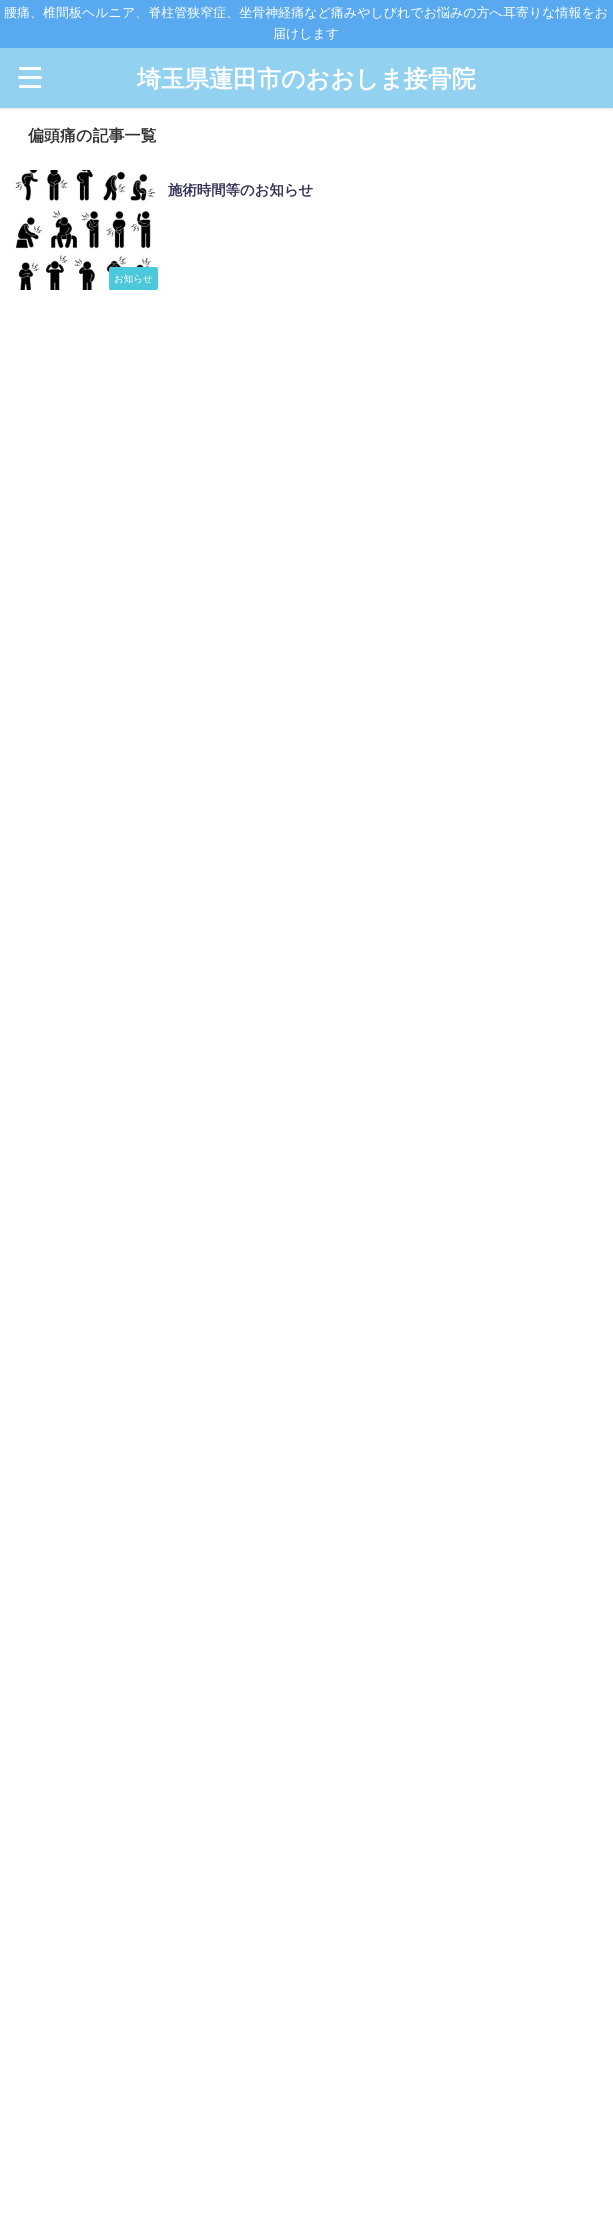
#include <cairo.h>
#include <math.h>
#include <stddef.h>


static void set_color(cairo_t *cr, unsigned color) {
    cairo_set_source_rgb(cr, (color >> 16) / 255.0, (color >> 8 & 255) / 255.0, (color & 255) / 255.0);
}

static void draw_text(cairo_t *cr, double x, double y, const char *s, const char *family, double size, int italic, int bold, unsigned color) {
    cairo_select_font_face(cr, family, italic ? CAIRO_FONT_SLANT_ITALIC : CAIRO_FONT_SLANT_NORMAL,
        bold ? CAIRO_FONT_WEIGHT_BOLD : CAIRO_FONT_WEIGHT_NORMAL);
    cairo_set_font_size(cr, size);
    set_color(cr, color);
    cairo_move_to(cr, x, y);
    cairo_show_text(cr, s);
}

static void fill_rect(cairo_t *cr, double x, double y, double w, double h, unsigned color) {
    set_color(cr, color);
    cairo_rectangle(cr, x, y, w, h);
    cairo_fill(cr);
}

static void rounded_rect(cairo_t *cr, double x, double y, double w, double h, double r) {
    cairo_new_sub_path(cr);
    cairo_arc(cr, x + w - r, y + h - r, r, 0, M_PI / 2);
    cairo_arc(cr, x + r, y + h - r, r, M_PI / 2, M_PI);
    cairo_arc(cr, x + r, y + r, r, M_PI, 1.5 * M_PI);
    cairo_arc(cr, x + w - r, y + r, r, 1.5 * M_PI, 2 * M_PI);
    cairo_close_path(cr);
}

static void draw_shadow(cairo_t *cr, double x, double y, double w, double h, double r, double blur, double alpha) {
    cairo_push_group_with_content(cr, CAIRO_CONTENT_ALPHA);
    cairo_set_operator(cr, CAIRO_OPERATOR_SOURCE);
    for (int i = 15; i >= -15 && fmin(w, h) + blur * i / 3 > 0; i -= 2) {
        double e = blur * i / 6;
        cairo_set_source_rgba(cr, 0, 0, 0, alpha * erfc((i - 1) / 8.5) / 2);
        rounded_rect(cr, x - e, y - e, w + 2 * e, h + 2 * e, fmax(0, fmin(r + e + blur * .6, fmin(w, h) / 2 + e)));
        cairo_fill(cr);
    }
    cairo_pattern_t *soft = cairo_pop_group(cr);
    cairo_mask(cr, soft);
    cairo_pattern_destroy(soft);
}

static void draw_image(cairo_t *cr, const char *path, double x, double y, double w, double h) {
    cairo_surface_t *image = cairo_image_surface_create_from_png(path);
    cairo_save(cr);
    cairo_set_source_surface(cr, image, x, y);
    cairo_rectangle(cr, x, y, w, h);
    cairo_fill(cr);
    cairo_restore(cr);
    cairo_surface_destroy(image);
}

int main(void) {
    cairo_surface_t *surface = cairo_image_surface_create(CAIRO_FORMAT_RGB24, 613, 2239);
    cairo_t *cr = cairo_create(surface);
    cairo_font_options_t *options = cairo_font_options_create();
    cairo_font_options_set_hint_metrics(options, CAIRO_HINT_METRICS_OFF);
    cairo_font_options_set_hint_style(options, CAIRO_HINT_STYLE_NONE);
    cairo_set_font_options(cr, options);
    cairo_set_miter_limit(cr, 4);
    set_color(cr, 0xFFFFFF);
    cairo_paint(cr);
    set_color(cr, 0x000000);
    draw_shadow(cr, 0, 0, 613, 108, 0, 2, 0.2);
    fill_rect(cr, 0, 48, 613, 60, 0x93D1F0);
    fill_rect(cr, 0, 0, 613, 48, 0x58A9EF);
    draw_text(cr, 4, 17, "腰痛、椎間板ヘルニア、脊柱管狭窄症、坐骨神経痛など痛みやしびれでお悩みの方へ耳寄りな情報をお", "WenQuanYi Zen Hei Medium", 13, 0, 0, 0xFFFFFF);
    draw_text(cr, 273, 38, "届けします", "WenQuanYi Zen Hei Medium", 13, 0, 0, 0xFFFFFF);
    fill_rect(cr, 19, 67, 22, 3, 0xFFFFFF);
    rounded_rect(cr, 18, 76, 24, 3, 1.5);
    cairo_fill(cr);
    fill_rect(cr, 19, 85, 22, 3, 0xFFFFFF);
    draw_text(cr, 137, 87, "埼玉県蓮田市のおおしま接骨院", "WenQuanYi Zen Hei", 24, 0, 1, 0xFFFFFF);
    draw_text(cr, 28, 141, "偏頭痛の記事一覧", "WenQuanYi Zen Hei", 16, 0, 1, 0x333333);
    draw_text(cr, 168, 195, "施術時間等のお知らせ", "WenQuanYi Zen Hei", 14.4, 0, 1, 0x333355);
    draw_image(cr, "assets/img1.png", 8, 170, 150, 120);
    set_color(cr, 0x4CC8DB);
    rounded_rect(cr, 109, 267, 49, 23, 2);
    cairo_fill(cr);
    draw_text(cr, 114, 282, "お知らせ", "WenQuanYi Zen Hei Medium", 9.5, 0, 0, 0xFFFFFF);
    cairo_surface_write_to_png(surface, "output.png");
    cairo_font_options_destroy(options);
    cairo_destroy(cr);
    cairo_surface_destroy(surface);
    return 0;
}
